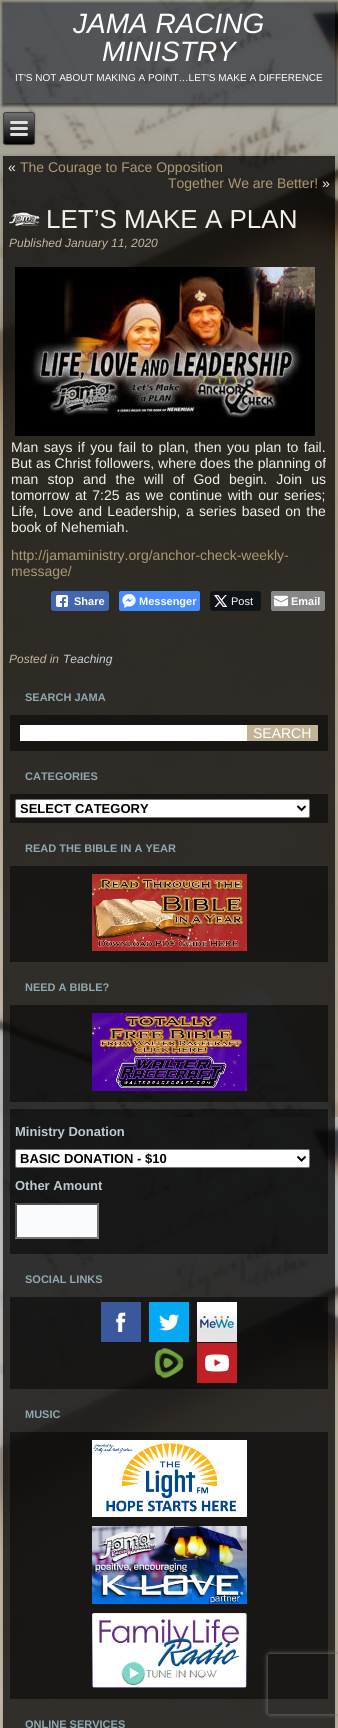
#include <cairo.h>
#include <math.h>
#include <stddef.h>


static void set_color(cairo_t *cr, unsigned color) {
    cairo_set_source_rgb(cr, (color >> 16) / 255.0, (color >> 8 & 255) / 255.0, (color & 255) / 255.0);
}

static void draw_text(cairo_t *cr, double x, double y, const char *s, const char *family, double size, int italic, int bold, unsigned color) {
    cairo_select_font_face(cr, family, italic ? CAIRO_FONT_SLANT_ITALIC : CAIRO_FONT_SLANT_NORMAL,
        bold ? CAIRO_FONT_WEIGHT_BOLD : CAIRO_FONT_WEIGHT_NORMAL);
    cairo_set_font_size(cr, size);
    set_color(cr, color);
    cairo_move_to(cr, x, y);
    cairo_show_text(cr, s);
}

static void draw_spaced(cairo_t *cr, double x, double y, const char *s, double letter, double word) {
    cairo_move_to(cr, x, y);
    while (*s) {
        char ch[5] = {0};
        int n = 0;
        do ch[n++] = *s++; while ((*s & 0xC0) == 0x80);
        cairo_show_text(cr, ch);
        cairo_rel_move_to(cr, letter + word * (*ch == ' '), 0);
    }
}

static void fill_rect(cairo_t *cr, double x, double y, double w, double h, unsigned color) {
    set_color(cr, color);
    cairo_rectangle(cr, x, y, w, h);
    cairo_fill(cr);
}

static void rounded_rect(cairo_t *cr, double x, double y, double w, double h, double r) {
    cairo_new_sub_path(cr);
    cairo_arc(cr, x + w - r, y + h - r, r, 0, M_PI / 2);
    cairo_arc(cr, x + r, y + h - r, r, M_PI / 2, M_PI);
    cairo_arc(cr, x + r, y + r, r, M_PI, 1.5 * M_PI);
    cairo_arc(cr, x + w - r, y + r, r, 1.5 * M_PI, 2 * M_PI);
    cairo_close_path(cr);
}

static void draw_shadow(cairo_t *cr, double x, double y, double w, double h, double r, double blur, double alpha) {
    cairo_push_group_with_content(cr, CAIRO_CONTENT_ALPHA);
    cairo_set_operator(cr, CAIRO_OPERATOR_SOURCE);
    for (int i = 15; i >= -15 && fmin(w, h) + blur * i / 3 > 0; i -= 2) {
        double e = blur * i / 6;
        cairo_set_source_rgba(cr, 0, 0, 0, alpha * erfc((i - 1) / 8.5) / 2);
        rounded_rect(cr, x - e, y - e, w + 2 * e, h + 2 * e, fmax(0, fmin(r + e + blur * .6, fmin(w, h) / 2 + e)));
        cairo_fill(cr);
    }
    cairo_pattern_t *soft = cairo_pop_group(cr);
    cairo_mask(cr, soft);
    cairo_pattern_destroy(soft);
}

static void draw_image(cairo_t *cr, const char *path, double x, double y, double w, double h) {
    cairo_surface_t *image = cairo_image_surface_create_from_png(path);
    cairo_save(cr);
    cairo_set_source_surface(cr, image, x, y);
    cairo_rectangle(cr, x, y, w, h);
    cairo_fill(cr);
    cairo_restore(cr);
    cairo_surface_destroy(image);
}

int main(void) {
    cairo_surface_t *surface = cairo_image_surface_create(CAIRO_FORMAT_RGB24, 338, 1728);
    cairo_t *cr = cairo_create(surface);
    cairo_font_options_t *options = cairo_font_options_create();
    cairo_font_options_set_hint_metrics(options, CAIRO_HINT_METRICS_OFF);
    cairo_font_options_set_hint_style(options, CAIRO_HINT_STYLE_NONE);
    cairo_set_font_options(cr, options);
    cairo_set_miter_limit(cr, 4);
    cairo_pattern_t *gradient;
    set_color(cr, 0xFFFFFF);
    cairo_paint(cr);
    draw_image(cr, "assets/img1.png", 0, 0, 338, 1728);
    cairo_save(cr);
    cairo_set_fill_rule(cr, CAIRO_FILL_RULE_EVEN_ODD);
    cairo_new_path(cr);
    cairo_move_to(cr, 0, 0);
    cairo_line_to(cr, 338, 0);
    cairo_line_to(cr, 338, 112);
    cairo_line_to(cr, 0, 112);
    cairo_close_path(cr);
    cairo_move_to(cr, 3, 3);
    cairo_line_to(cr, 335, 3);
    cairo_line_to(cr, 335, 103);
    cairo_line_to(cr, 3, 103);
    cairo_close_path(cr);
    cairo_clip(cr);
    set_color(cr, 0x000000);
    draw_shadow(cr, 2, 2, 336, 104, 0, 1.5, 0.6);
    cairo_restore(cr);
    cairo_set_source_rgba(cr, 0.11, 0.129, 0.165, 0.6);
    cairo_rectangle(cr, 3, 3, 332, 100);
    cairo_fill(cr);
    draw_text(cr, 73, 33, "JAMA RACING", "Liberation Sans", 28, 1, 0, 0xFFFFFF);
    draw_text(cr, 102, 61, "MINISTRY", "Liberation Sans", 28, 1, 0, 0xFFFFFF);
    draw_text(cr, 15, 81, "IT'S NOT ABOUT MAKING A POINT…LET'S MAKE A DIFFERENCE", "Liberation Sans", 10, 0, 0, 0xFFFFFF);
    set_color(cr, 0x000000);
    draw_shadow(cr, 3, 112, 32, 33, 3, 1.5, 0.2);
    cairo_save(cr);
    rounded_rect(cr, 3, 112, 32, 33, 3);
    cairo_clip(cr);
    gradient = cairo_pattern_create_linear(19, 113, 19, 144);
    cairo_pattern_add_color_stop_rgba(gradient, 0, 0.439, 0.439, 0.439, 1);
    cairo_pattern_add_color_stop_rgba(gradient, 1, 0, 0, 0, 1);
    cairo_set_source(cr, gradient);
    cairo_pattern_destroy(gradient);
    cairo_rectangle(cr, 3, 113, 32, 31);
    cairo_fill(cr);
    cairo_restore(cr);
    rounded_rect(cr, 3.5, 112.5, 31, 32, 2.5);
    set_color(cr, 0x404040);
    cairo_set_line_width(cr, 1);
    cairo_stroke(cr);
    set_color(cr, 0xE0E0E0);
    rounded_rect(cr, 10, 121, 18, 3, 1.5);
    cairo_fill(cr);
    rounded_rect(cr, 10, 127, 18, 3, 1.5);
    cairo_fill(cr);
    rounded_rect(cr, 10, 133, 18, 3, 1.5);
    cairo_fill(cr);
    cairo_save(cr);
    cairo_set_fill_rule(cr, CAIRO_FILL_RULE_EVEN_ODD);
    cairo_new_path(cr);
    cairo_move_to(cr, 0, 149);
    cairo_line_to(cr, 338, 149);
    cairo_line_to(cr, 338, 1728);
    cairo_line_to(cr, 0, 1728);
    cairo_close_path(cr);
    cairo_move_to(cr, 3, 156);
    cairo_line_to(cr, 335, 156);
    cairo_line_to(cr, 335, 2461);
    cairo_line_to(cr, 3, 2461);
    cairo_close_path(cr);
    cairo_clip(cr);
    set_color(cr, 0x000000);
    draw_shadow(cr, 2, 155, 336, 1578, 0, 1.5, 0.11);
    cairo_restore(cr);
    cairo_set_source_rgba(cr, 0, 0, 0, 0.75);
    cairo_rectangle(cr, 3, 156, 332, 1572);
    cairo_fill(cr);
    draw_text(cr, 8, 172, "«", "Liberation Sans", 14, 0, 0, 0xF4F1EC);
    draw_text(cr, 20, 172, "The Courage to Face Opposition", "Liberation Sans", 14, 0, 0, 0xAB9973);
    draw_text(cr, 168, 188, "Together We are Better!", "Liberation Sans", 14, 0, 0, 0xAB9973);
    draw_text(cr, 322, 188, "»", "Liberation Sans", 14, 0, 0, 0xF4F1EC);
    draw_image(cr, "assets/img2.png", 9, 212, 31, 14);
    draw_text(cr, 46, 228, "LET’S MAKE A PLAN", "Liberation Sans", 26, 0, 0, 0xF4F1EC);
    draw_text(cr, 9, 247, "Published January 11, 2020", "Liberation Sans", 12, 1, 0, 0xC4B79C);
    draw_image(cr, "assets/img3.png", 15, 267, 300, 169);
    cairo_select_font_face(cr, "Liberation Sans", CAIRO_FONT_SLANT_NORMAL, CAIRO_FONT_WEIGHT_NORMAL);
    cairo_set_font_size(cr, 14);
    set_color(cr, 0xF4F1EC);
    draw_spaced(cr, 11, 452, "Man says if you fail to plan, then you plan to fail.", 0, 1.5);
    draw_text(cr, 11, 468, "But as Christ followers, where does the planning of", "Liberation Sans", 14, 0, 0, 0xF4F1EC);
    draw_spaced(cr, 11, 484, "man stop and the will of God begin. Join us", 0, 5.25);
    draw_spaced(cr, 11, 500, "tomorrow at 7:25 as we continue with our series;", 0, 1.75);
    draw_spaced(cr, 11, 516, "Life, Love and Leadership, a series based on the", 0, 1.5);
    draw_text(cr, 11, 532, "book of Nehemiah.", "Liberation Sans", 14, 0, 0, 0xF4F1EC);
    draw_text(cr, 11, 560, "http://jamaministry.org/anchor-check-weekly-", "Liberation Sans", 14, 0, 0, 0xAB9973);
    draw_text(cr, 11, 576, "message/", "Liberation Sans", 14, 0, 0, 0xAB9973);
    set_color(cr, 0x4267B2);
    rounded_rect(cr, 51.5, 591.5, 57, 19, 2.5);
    cairo_fill_preserve(cr);
    cairo_stroke(cr);
    draw_image(cr, "assets/img4.png", 56, 595, 12, 12);
    draw_text(cr, 74, 605, "Share", "Liberation Sans", 11, 0, 1, 0xFFFFFF);
    set_color(cr, 0x468BFF);
    rounded_rect(cr, 119, 591, 81, 20, 2);
    cairo_fill(cr);
    draw_image(cr, "assets/img5.png", 122, 594, 14, 14);
    draw_text(cr, 139, 605, "Messenger", "Liberation Sans", 11, 0, 1, 0xFFFFFF);
    set_color(cr, 0x0F1419);
    rounded_rect(cr, 210, 591, 51, 20, 3);
    cairo_fill(cr);
    draw_image(cr, "assets/img6.png", 214, 595, 14, 12);
    draw_text(cr, 231, 605, "Post", "Liberation Sans", 11, 0, 0, 0xFFFFFF);
    set_color(cr, 0x878787);
    rounded_rect(cr, 271, 591, 54, 20, 2);
    cairo_fill(cr);
    draw_image(cr, "assets/img7.png", 274, 595, 14, 12);
    draw_text(cr, 291, 605, "Email", "Liberation Sans", 11, 0, 1, 0xFFFFFF);
    draw_text(cr, 9, 663, "Posted in", "Liberation Sans", 12, 1, 0, 0xC4B79C);
    draw_text(cr, 63, 663, "Teaching", "Liberation Sans", 12, 1, 0, 0xC6D2D7);
    draw_text(cr, 25, 701, "SEARCH JAMA", "Liberation Sans", 11, 0, 1, 0x91A8B1);
    cairo_set_source_rgba(cr, 0, 0, 0, 0.5);
    cairo_rectangle(cr, 10, 715, 318, 36);
    cairo_fill(cr);
    fill_rect(cr, 20, 725, 227, 16, 0xFFFFFF);
    fill_rect(cr, 247, 725, 71, 16, 0xC0B396);
    draw_text(cr, 253, 738, "SEARCH", "Liberation Sans", 14, 0, 0, 0xFFFFFF);
    draw_text(cr, 25, 780, "CATEGORIES", "Liberation Sans", 11, 0, 1, 0x91A8B1);
    cairo_set_source_rgba(cr, 0, 0, 0, 0.5);
    cairo_rectangle(cr, 10, 794, 318, 29);
    cairo_fill(cr);
    set_color(cr, 0xFFFFFF);
    rounded_rect(cr, 15.5, 799.5, 294, 18, 1.5);
    cairo_fill_preserve(cr);
    set_color(cr, 0x767676);
    cairo_stroke(cr);
    cairo_new_path(cr);
    cairo_move_to(cr, 297.5, 806);
    cairo_line_to(cr, 301.5, 810);
    cairo_line_to(cr, 305.5, 806);
    set_color(cr, 0x000000);
    cairo_set_line_width(cr, 2);
    cairo_stroke(cr);
    draw_text(cr, 20, 813, "SELECT CATEGORY", "Liberation Sans", 13, 0, 1, 0x000000);
    draw_text(cr, 25, 852, "READ THE BIBLE IN A YEAR", "Liberation Sans", 11, 0, 1, 0x91A8B1);
    cairo_set_source_rgba(cr, 0, 0, 0, 0.5);
    cairo_rectangle(cr, 10, 866, 318, 96);
    cairo_fill(cr);
    draw_image(cr, "assets/img8.png", 92, 874, 155, 77);
    draw_text(cr, 25, 991, "NEED A BIBLE?", "Liberation Sans", 11, 0, 1, 0x91A8B1);
    cairo_set_source_rgba(cr, 0, 0, 0, 0.5);
    cairo_rectangle(cr, 10, 1005, 318, 97);
    cairo_fill(cr);
    draw_image(cr, "assets/img9.png", 92, 1013, 155, 78);
    cairo_rectangle(cr, 10, 1109, 318, 145);
    cairo_fill(cr);
    draw_text(cr, 15, 1136, "Ministry Donation", "Liberation Sans", 13, 0, 1, 0xBDCBD0);
    set_color(cr, 0xFFFFFF);
    rounded_rect(cr, 15.5, 1149.5, 294, 18, 1.5);
    cairo_fill_preserve(cr);
    set_color(cr, 0x767676);
    cairo_set_line_width(cr, 1);
    cairo_stroke(cr);
    cairo_new_path(cr);
    cairo_move_to(cr, 297.5, 1156.5);
    cairo_line_to(cr, 301.5, 1160.5);
    cairo_line_to(cr, 305.5, 1156.5);
    set_color(cr, 0x000000);
    cairo_set_line_width(cr, 2);
    cairo_stroke(cr);
    draw_text(cr, 20, 1163, "BASIC DONATION - $10", "Liberation Sans", 13, 0, 1, 0x000000);
    draw_text(cr, 15, 1190, "Other Amount", "Liberation Sans", 13, 0, 1, 0xBDCBD0);
    fill_rect(cr, 15, 1203, 84, 36, 0xF9FAFB);
    set_color(cr, 0x4F4F4F);
    cairo_new_path(cr);
    cairo_move_to(cr, 15, 1203);
    cairo_line_to(cr, 99, 1203);
    cairo_line_to(cr, 97, 1205);
    cairo_line_to(cr, 17, 1205);
    cairo_close_path(cr);
    cairo_fill(cr);
    set_color(cr, 0x767676);
    cairo_new_path(cr);
    cairo_move_to(cr, 99, 1203);
    cairo_line_to(cr, 99, 1239);
    cairo_line_to(cr, 97, 1237);
    cairo_line_to(cr, 97, 1205);
    cairo_close_path(cr);
    cairo_fill(cr);
    cairo_new_path(cr);
    cairo_move_to(cr, 99, 1239);
    cairo_line_to(cr, 15, 1239);
    cairo_line_to(cr, 17, 1237);
    cairo_line_to(cr, 97, 1237);
    cairo_close_path(cr);
    cairo_fill(cr);
    set_color(cr, 0x4F4F4F);
    cairo_new_path(cr);
    cairo_move_to(cr, 15, 1239);
    cairo_line_to(cr, 15, 1203);
    cairo_line_to(cr, 17, 1205);
    cairo_line_to(cr, 17, 1237);
    cairo_close_path(cr);
    cairo_fill(cr);
    draw_text(cr, 25, 1283, "SOCIAL LINKS", "Liberation Sans", 11, 0, 1, 0x91A8B1);
    cairo_set_source_rgba(cr, 0, 0, 0, 0.5);
    cairo_rectangle(cr, 10, 1297, 318, 92);
    cairo_fill(cr);
    draw_image(cr, "assets/img10.png", 101, 1302, 40, 40);
    draw_image(cr, "assets/img11.png", 149, 1302, 40, 40);
    draw_image(cr, "assets/img12.png", 197, 1302, 40, 40);
    draw_image(cr, "assets/img13.png", 154, 1347, 30, 32);
    draw_image(cr, "assets/img14.png", 197, 1343, 40, 40);
    draw_text(cr, 25, 1418, "MUSIC", "Liberation Sans", 11, 0, 1, 0x91A8B1);
    cairo_set_source_rgba(cr, 0, 0, 0, 0.5);
    cairo_rectangle(cr, 10, 1432, 318, 267);
    cairo_fill(cr);
    draw_image(cr, "assets/img15.png", 92, 1440, 155, 77);
    draw_image(cr, "assets/img16.png", 92, 1526, 155, 78);
    draw_image(cr, "assets/img17.png", 92, 1613, 155, 75);
    draw_text(cr, 25, 1728, "ONLINE SERVICES", "Liberation Sans", 11, 0, 1, 0x91A8B1);
    cairo_save(cr);
    cairo_set_fill_rule(cr, CAIRO_FILL_RULE_EVEN_ODD);
    cairo_new_path(cr);
    cairo_move_to(cr, 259, 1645);
    cairo_line_to(cr, 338, 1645);
    cairo_line_to(cr, 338, 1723);
    cairo_line_to(cr, 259, 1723);
    cairo_close_path(cr);
    cairo_move_to(cr, 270, 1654);
    cairo_line_to(cr, 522, 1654);
    cairo_curve_to(cr, 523, 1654, 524, 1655, 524, 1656);
    cairo_line_to(cr, 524, 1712);
    cairo_curve_to(cr, 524, 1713, 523, 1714, 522, 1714);
    cairo_line_to(cr, 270, 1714);
    cairo_curve_to(cr, 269, 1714, 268, 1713, 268, 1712);
    cairo_line_to(cr, 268, 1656);
    cairo_curve_to(cr, 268, 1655, 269, 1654, 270, 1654);
    cairo_close_path(cr);
    cairo_clip(cr);
    set_color(cr, 0x808080);
    draw_shadow(cr, 268, 1654, 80, 60, 2, 2.5, 1);
    cairo_restore(cr);
    cairo_surface_write_to_png(surface, "output.png");
    cairo_font_options_destroy(options);
    cairo_destroy(cr);
    cairo_surface_destroy(surface);
    return 0;
}
